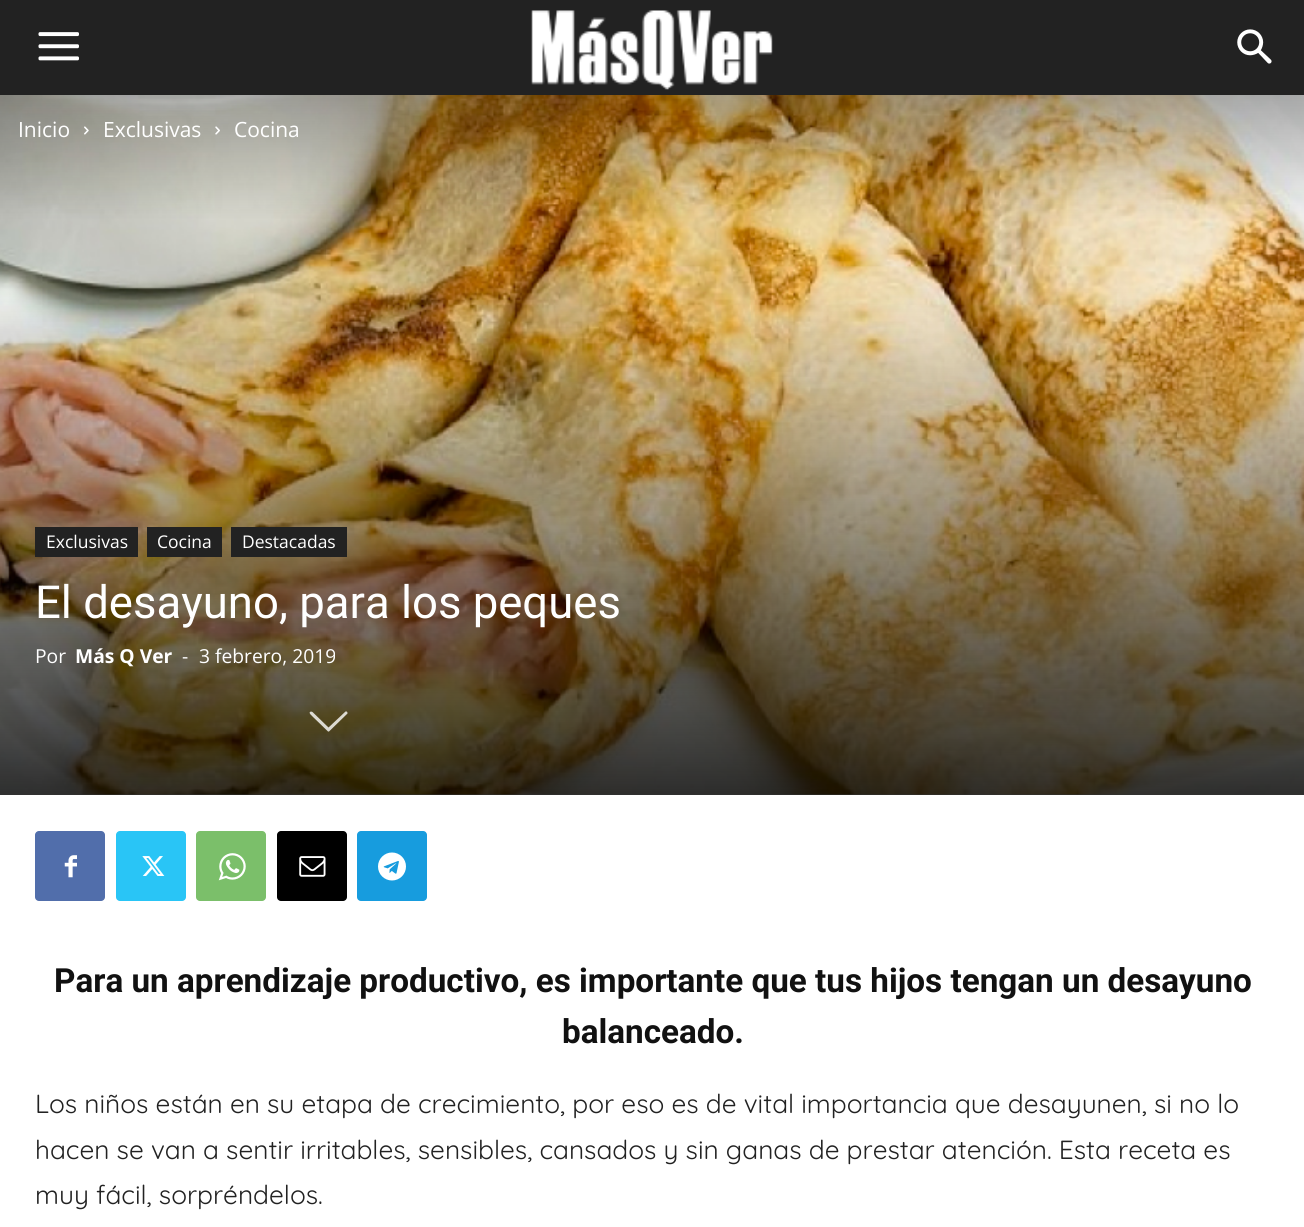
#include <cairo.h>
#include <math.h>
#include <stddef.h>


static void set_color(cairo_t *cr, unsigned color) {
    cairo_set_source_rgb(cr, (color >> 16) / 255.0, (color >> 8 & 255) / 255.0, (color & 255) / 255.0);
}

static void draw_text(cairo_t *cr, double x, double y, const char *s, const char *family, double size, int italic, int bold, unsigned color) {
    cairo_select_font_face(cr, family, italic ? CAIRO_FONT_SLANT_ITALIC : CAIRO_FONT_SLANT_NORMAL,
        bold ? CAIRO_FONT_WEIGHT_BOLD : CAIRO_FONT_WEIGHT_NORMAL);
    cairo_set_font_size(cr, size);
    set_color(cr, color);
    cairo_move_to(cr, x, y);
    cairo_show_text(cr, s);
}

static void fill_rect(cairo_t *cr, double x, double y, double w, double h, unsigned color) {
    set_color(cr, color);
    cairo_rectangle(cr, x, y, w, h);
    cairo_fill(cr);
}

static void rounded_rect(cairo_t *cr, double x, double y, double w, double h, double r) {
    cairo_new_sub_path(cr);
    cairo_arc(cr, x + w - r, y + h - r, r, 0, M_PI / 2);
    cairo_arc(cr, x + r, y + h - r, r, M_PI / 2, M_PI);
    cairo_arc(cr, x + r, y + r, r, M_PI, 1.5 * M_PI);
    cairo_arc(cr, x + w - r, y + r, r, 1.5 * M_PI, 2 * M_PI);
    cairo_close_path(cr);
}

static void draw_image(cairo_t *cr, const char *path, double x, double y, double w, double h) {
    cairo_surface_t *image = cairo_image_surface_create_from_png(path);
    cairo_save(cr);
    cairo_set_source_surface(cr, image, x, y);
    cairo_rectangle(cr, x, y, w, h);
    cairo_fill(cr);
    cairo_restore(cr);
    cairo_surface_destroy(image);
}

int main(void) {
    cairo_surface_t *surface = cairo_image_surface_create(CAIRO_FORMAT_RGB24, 1304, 1227);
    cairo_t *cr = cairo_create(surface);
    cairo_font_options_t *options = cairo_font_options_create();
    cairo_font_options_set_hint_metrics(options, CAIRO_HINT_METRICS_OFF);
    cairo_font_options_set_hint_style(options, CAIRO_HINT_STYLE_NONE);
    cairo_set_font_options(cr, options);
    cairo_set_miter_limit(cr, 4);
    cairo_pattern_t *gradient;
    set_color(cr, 0xFFFFFF);
    cairo_paint(cr);
    fill_rect(cr, 0, 0, 1304, 95, 0x222222);
    draw_image(cr, "assets/img1.png", 38, 32, 41, 29);
    draw_image(cr, "assets/img2.png", 531, 10, 242, 80);
    draw_image(cr, "assets/img3.png", 1237, 29, 35, 35);
    draw_image(cr, "assets/img4.png", 0, 95, 1304, 700);
    gradient = cairo_pattern_create_linear(653, 94, 653, 795);
    cairo_pattern_add_color_stop_rgba(gradient, 0, 0, 0, 0, 0.3);
    cairo_pattern_add_color_stop_rgba(gradient, 0.18, 0, 0, 0, 0);
    cairo_pattern_add_color_stop_rgba(gradient, 0.28, 0, 0, 0, 0);
    cairo_pattern_add_color_stop_rgba(gradient, 1, 0, 0, 0, 0.8);
    cairo_set_source(cr, gradient);
    cairo_pattern_destroy(gradient);
    cairo_rectangle(cr, 0, 95, 1304, 700);
    cairo_fill(cr);
    draw_text(cr, 18, 137, "Inicio", "Open Sans", 21, 0, 0, 0xFFFFFF);
    draw_image(cr, "assets/img5.png", 84, 126, 5, 9);
    draw_text(cr, 103, 137, "Exclusivas", "Open Sans", 21, 0, 0, 0xFFFFFF);
    draw_image(cr, "assets/img6.png", 215, 126, 5, 9);
    draw_text(cr, 234, 137, "Cocina", "Open Sans", 21, 0, 0, 0xFFFFFF);
    fill_rect(cr, 35, 527, 103, 30, 0x222222);
    draw_text(cr, 46, 548, "Exclusivas", "Open Sans", 17.5, 0, 0, 0xFFFFFF);
    fill_rect(cr, 147, 527, 75, 30, 0x222222);
    draw_text(cr, 157, 548, "Cocina", "Open Sans", 17.5, 0, 0, 0xFFFFFF);
    fill_rect(cr, 231, 527, 116, 30, 0x222222);
    draw_text(cr, 242, 548, "Destacadas", "Open Sans", 17.5, 0, 0, 0xFFFFFF);
    draw_text(cr, 35, 618, "El desayuno, para los peques", "Roboto", 45.5, 0, 0, 0xFFFFFF);
    draw_text(cr, 35, 663, "Por", "Open Sans", 19.25, 0, 0, 0xFFFFFF);
    draw_text(cr, 75, 663, "Más Q Ver", "Open Sans", 19.25, 0, 1, 0xFFFFFF);
    draw_text(cr, 182, 663, "-", "Open Sans", 19.25, 0, 0, 0xFFFFFF);
    draw_text(cr, 199, 663, "3 febrero, 2019", "Open Sans", 19.25, 0, 0, 0xFFFFFF);
    cairo_set_source_rgba(cr, 1, 1, 1, 0.8);
    cairo_new_path(cr);
    cairo_move_to(cr, 312.5, 712);
    cairo_line_to(cr, 328.5, 727.5);
    cairo_line_to(cr, 345.5, 711.5);
    cairo_curve_to(cr, 346.5, 711, 347.5, 712, 347.5, 713);
    cairo_line_to(cr, 347.5, 713.5);
    cairo_line_to(cr, 329, 731.5);
    cairo_line_to(cr, 328, 731.5);
    cairo_line_to(cr, 313, 717);
    cairo_curve_to(cr, 313, 716.5, 307, 712.5, 311, 711.5);
    cairo_close_path(cr);
    cairo_fill(cr);
    set_color(cr, 0x516EAB);
    rounded_rect(cr, 35, 831, 70, 70, 4);
    cairo_fill(cr);
    draw_image(cr, "assets/img7.png", 64, 855, 13, 23);
    set_color(cr, 0x29C5F6);
    rounded_rect(cr, 116, 831, 70, 70, 4);
    cairo_fill(cr);
    draw_image(cr, "assets/img8.png", 142, 856, 23, 20);
    set_color(cr, 0x7BBF6A);
    rounded_rect(cr, 196, 831, 70, 70, 4);
    cairo_fill(cr);
    draw_image(cr, "assets/img9.png", 218, 853, 28, 28);
    set_color(cr, 0x000000);
    rounded_rect(cr, 277, 831, 70, 70, 4);
    cairo_fill(cr);
    draw_image(cr, "assets/img10.png", 299, 856, 27, 21);
    set_color(cr, 0x179CDE);
    rounded_rect(cr, 357, 831, 70, 70, 4);
    cairo_fill(cr);
    draw_image(cr, "assets/img11.png", 378, 852, 28, 29);
    draw_text(cr, 54, 992, "Para un aprendizaje productivo, es importante que tus hijos tengan un desayuno", "Roboto", 33.25, 0, 1, 0x111111);
    draw_text(cr, 562, 1043, "balanceado.", "Roboto", 33.25, 0, 1, 0x111111);
    draw_text(cr, 35, 1113, "Los niños están en su etapa de crecimiento, por eso es de vital importancia que desayunen, si no lo", "Quicksand Light", 26.25, 0, 0, 0x222222);
    draw_text(cr, 35, 1159, "hacen se van a sentir irritables, sensibles, cansados y sin ganas de prestar atención. Esta receta es", "Quicksand Light", 26.25, 0, 0, 0x222222);
    draw_text(cr, 35, 1204, "muy fácil, sorpréndelos.", "Quicksand Light", 26.25, 0, 0, 0x222222);
    cairo_surface_write_to_png(surface, "output.png");
    cairo_font_options_destroy(options);
    cairo_destroy(cr);
    cairo_surface_destroy(surface);
    return 0;
}
